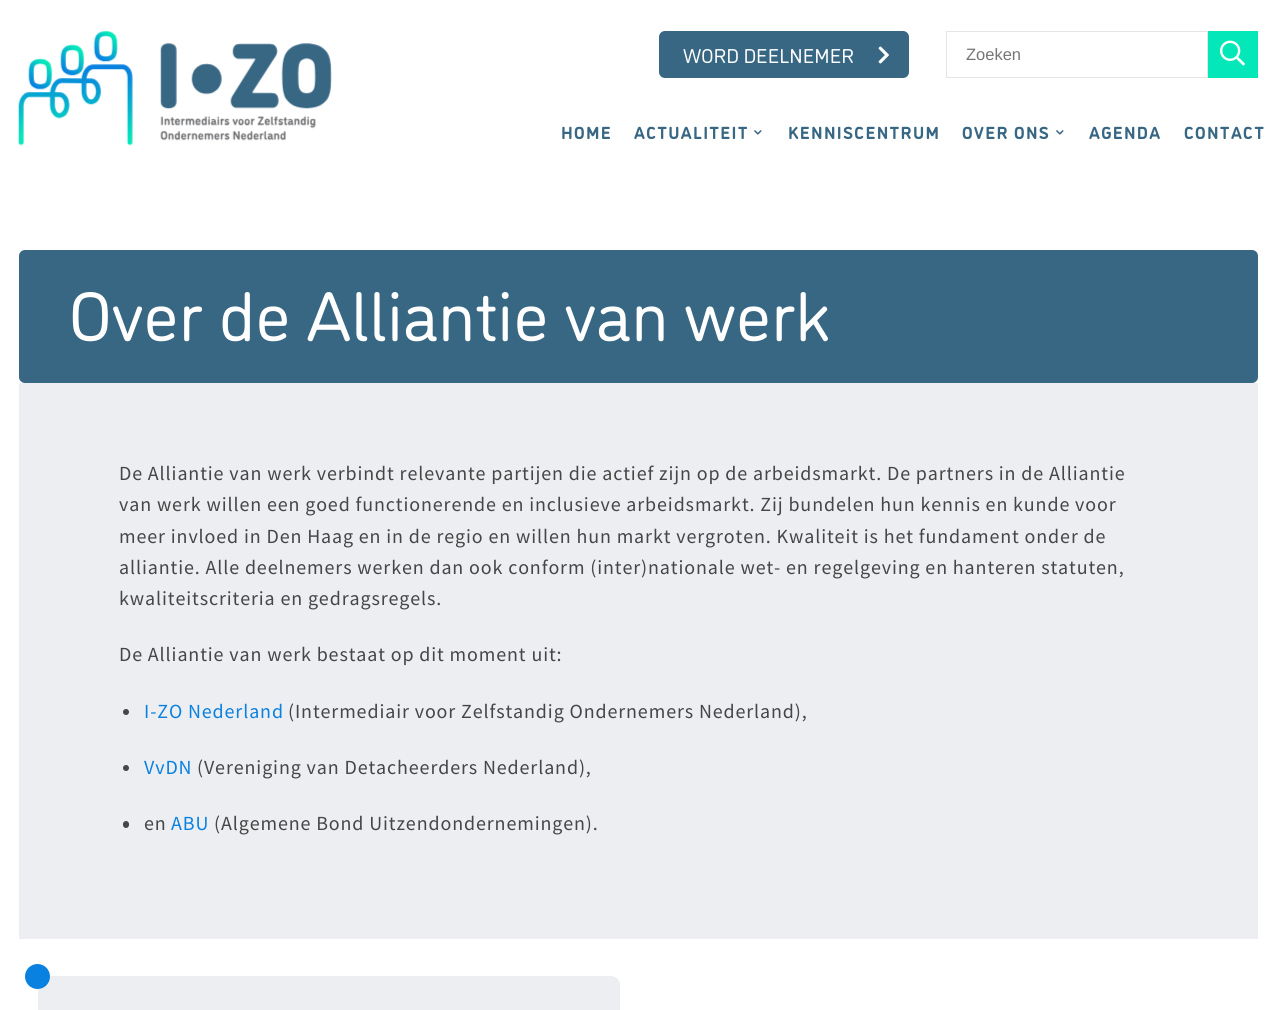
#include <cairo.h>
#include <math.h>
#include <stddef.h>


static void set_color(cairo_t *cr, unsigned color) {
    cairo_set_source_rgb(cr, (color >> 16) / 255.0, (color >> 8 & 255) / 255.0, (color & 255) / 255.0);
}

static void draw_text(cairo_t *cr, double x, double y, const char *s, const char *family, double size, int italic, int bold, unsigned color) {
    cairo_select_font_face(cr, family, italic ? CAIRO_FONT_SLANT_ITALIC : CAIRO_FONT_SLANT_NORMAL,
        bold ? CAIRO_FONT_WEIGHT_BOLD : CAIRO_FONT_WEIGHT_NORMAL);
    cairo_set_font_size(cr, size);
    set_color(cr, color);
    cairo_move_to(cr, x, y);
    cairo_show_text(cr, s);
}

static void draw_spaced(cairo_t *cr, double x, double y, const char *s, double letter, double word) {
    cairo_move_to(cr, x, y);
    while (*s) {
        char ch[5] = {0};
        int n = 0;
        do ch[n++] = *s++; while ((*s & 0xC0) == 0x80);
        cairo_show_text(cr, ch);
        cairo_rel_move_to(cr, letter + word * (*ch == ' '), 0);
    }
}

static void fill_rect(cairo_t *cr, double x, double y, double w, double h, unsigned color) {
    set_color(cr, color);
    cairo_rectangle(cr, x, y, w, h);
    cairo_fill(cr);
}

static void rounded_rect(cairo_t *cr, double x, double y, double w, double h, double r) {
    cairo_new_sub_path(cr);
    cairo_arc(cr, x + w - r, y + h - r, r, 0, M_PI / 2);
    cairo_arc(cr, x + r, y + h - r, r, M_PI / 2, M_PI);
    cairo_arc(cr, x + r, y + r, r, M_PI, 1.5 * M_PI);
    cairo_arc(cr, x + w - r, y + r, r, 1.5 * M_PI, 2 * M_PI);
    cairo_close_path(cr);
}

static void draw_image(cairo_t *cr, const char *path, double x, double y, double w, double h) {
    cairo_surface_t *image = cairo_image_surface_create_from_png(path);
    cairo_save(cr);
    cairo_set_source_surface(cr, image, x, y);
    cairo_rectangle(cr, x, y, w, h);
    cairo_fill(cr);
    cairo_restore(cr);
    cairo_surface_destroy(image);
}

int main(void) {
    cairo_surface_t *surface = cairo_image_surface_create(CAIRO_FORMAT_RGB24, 1276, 1010);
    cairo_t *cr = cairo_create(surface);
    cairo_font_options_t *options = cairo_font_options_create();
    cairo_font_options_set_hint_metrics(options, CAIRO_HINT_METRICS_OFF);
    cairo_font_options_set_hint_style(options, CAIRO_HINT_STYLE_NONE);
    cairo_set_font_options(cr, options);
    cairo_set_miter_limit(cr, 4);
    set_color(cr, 0xFFFFFF);
    cairo_paint(cr);
    draw_image(cr, "assets/img1.png", 18, 31, 314, 115);
    set_color(cr, 0x386784);
    rounded_rect(cr, 659, 31, 250, 47, 6);
    cairo_fill(cr);
    draw_text(cr, 683, 63, "WORD DEELNEMER", "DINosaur", 20, 0, 0, 0xFFFFFF);
    draw_image(cr, "assets/img2.png", 878, 46, 11, 18);
    cairo_rectangle(cr, 946.5, 31.5, 261, 46);
    set_color(cr, 0xE5E5E5);
    cairo_set_line_width(cr, 1);
    cairo_stroke(cr);
    draw_text(cr, 966, 60, "Zoeken", "Liberation Sans", 16.5, 0, 0, 0x757575);
    fill_rect(cr, 1208, 31, 50, 47, 0x04E8B9);
    draw_image(cr, "assets/img3.png", 1220, 40, 25, 26);
    cairo_select_font_face(cr, "DINosaur", CAIRO_FONT_SLANT_NORMAL, CAIRO_FONT_WEIGHT_BOLD);
    cairo_set_font_size(cr, 17.5);
    set_color(cr, 0x386784);
    draw_spaced(cr, 561, 139, "HOME", 1.25, 0);
    draw_spaced(cr, 634, 139, "ACTUALITEIT", 1.25, 0);
    cairo_save(cr);
    cairo_translate(cr, 753, 129);
    cairo_rotate(cr, 90 * M_PI / 180);
    draw_spaced(cr, 0, 0, "›", 1.25, 0);
    cairo_restore(cr);
    draw_spaced(cr, 788, 139, "KENNISCENTRUM", 1.25, 0);
    draw_spaced(cr, 962, 139, "OVER ONS", 1.25, 0);
    cairo_save(cr);
    cairo_translate(cr, 1055, 129);
    cairo_rotate(cr, 90 * M_PI / 180);
    draw_spaced(cr, 0, 0, "›", 1.25, 0);
    cairo_restore(cr);
    draw_spaced(cr, 1089, 139, "AGENDA", 1.25, 0);
    draw_spaced(cr, 1184, 139, "CONTACT", 1.25, 0);
    rounded_rect(cr, 19, 250, 1239, 133, 6);
    cairo_fill(cr);
    draw_text(cr, 69, 341, "Over de Alliantie van werk", "DINosaur", 70, 0, 0, 0xFFFFFF);
    fill_rect(cr, 19, 383, 1239, 556, 0xEDEEF2);
    cairo_select_font_face(cr, "Source Sans Pro", CAIRO_FONT_SLANT_NORMAL, CAIRO_FONT_WEIGHT_NORMAL);
    cairo_set_font_size(cr, 20);
    set_color(cr, 0x464646);
    draw_spaced(cr, 119, 480, "De Alliantie van werk verbindt relevante partijen die actief zijn op de arbeidsmarkt. De partners in de Alliantie", 0.88, 0);
    draw_spaced(cr, 119, 511, "van werk willen een goed functionerende en inclusieve arbeidsmarkt. Zij bundelen hun kennis en kunde voor", 0.88, 0);
    draw_spaced(cr, 119, 543, "meer invloed in Den Haag en in de regio en willen hun markt vergroten. Kwaliteit is het fundament onder de", 0.88, 0);
    draw_spaced(cr, 119, 574, "alliantie. Alle deelnemers werken dan ook conform (inter)nationale wet- en regelgeving en hanteren statuten,", 0.88, 0);
    draw_spaced(cr, 119, 605, "kwaliteitscriteria en gedragsregels.", 0.88, 0);
    draw_spaced(cr, 119, 661, "De Alliantie van werk bestaat op dit moment uit:", 0.88, 0);
    cairo_new_path(cr);
    cairo_arc(cr, 126, 712, 3, 0, 2 * M_PI);
    cairo_fill(cr);
    set_color(cr, 0x0881E0);
    draw_spaced(cr, 144, 718, "I-ZO Nederland", 0.88, 0);
    set_color(cr, 0x464646);
    draw_spaced(cr, 288, 718, "(Intermediair voor Zelfstandig Ondernemers Nederland),", 0.88, 0);
    cairo_new_path(cr);
    cairo_arc(cr, 126, 768, 3, 0, 2 * M_PI);
    cairo_fill(cr);
    set_color(cr, 0x0881E0);
    draw_spaced(cr, 144, 774, "VvDN", 0.88, 0);
    set_color(cr, 0x464646);
    draw_spaced(cr, 197, 774, "(Vereniging van Detacheerders Nederland),", 0.88, 0);
    rounded_rect(cr, 123, 821, 6, 7, 3);
    cairo_fill(cr);
    draw_spaced(cr, 144, 830, "en", 0.88, 0);
    set_color(cr, 0x0881E0);
    draw_spaced(cr, 171, 830, "ABU", 0.88, 0);
    set_color(cr, 0x464646);
    draw_spaced(cr, 214, 830, "(Algemene Bond Uitzendondernemingen).", 0.88, 0);
    set_color(cr, 0xEDEEF2);
    rounded_rect(cr, 38, 976, 582, 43, 9);
    cairo_fill(cr);
    set_color(cr, 0x0881E0);
    cairo_arc(cr, 37.5, 976.5, 12.5, 0, 2 * M_PI);
    cairo_fill(cr);
    cairo_surface_write_to_png(surface, "output.png");
    cairo_font_options_destroy(options);
    cairo_destroy(cr);
    cairo_surface_destroy(surface);
    return 0;
}
